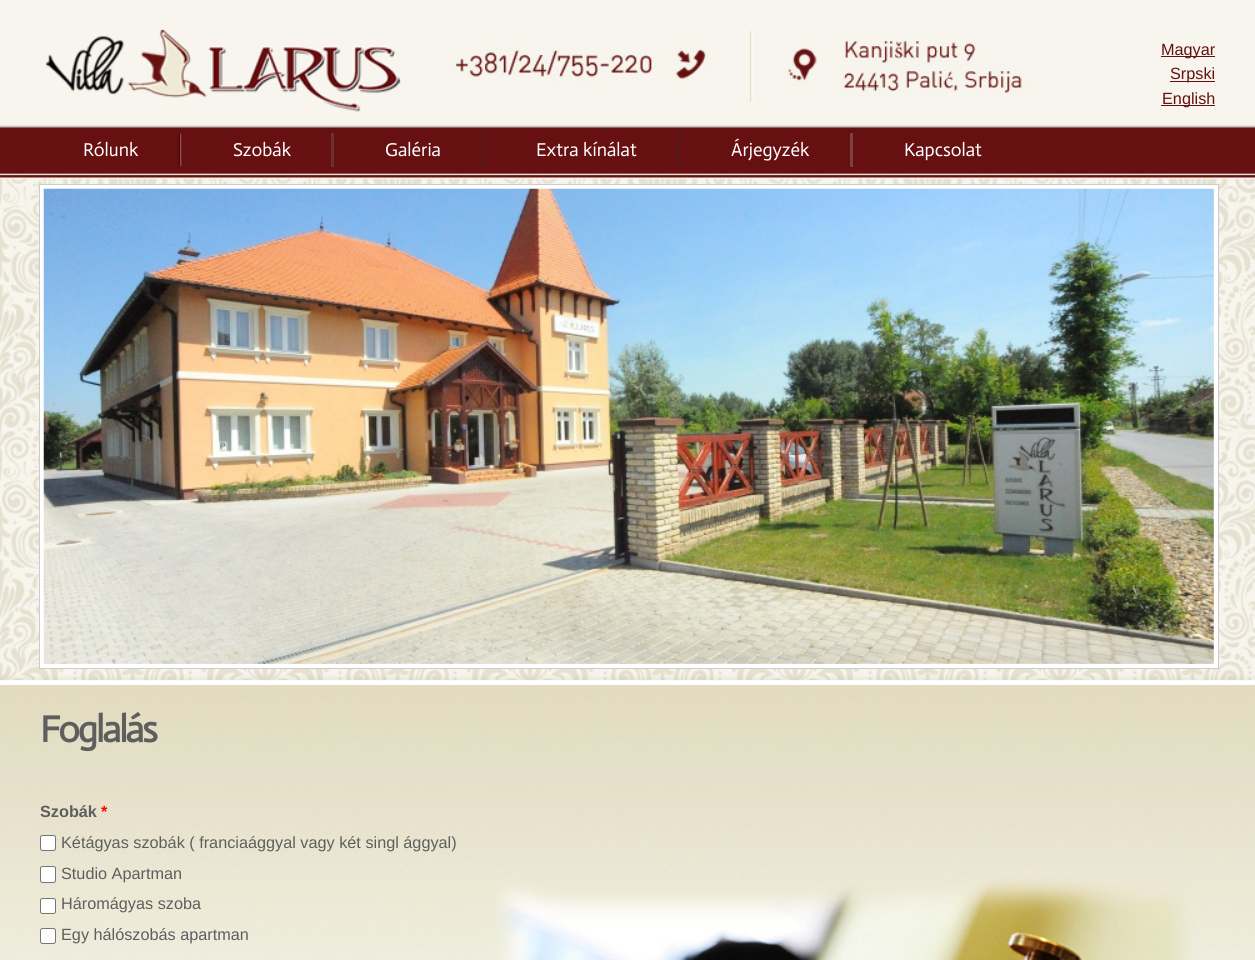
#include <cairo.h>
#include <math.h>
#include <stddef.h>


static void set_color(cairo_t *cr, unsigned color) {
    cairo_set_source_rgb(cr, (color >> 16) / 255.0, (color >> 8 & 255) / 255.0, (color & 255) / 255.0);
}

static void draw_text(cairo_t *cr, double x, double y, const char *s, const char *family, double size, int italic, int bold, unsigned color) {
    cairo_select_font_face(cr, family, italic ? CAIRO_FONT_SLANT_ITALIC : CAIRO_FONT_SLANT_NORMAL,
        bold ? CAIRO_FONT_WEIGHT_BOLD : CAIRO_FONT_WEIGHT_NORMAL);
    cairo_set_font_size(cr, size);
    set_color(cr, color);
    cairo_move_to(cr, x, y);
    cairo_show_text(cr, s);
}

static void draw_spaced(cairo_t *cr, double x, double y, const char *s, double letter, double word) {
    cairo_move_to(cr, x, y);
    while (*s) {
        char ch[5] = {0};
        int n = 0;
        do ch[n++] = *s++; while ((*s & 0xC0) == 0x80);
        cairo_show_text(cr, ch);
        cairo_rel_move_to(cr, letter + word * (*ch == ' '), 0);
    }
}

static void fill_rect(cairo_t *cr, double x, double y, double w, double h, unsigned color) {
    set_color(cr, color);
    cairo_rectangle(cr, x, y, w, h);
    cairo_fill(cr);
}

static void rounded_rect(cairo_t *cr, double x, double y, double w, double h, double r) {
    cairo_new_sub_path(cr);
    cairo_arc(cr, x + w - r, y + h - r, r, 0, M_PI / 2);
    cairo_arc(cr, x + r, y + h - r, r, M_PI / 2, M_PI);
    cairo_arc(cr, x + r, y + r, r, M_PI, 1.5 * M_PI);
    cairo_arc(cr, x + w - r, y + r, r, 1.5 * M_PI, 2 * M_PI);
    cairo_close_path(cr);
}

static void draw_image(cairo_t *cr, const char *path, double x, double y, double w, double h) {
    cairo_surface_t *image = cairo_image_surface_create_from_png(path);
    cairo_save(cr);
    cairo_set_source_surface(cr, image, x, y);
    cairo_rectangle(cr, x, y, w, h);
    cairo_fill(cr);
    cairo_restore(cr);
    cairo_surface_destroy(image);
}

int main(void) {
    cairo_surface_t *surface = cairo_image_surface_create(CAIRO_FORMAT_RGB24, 1255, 960);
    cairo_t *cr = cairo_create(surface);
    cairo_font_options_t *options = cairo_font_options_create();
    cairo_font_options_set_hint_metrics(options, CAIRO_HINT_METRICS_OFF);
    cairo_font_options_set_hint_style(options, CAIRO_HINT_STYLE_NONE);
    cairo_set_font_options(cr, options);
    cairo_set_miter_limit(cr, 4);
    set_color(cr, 0xFFFFFF);
    cairo_paint(cr);
    draw_image(cr, "assets/img1.png", 0, 0, 1255, 960);
    draw_image(cr, "assets/img2.png", 46, 29, 355, 83);
    draw_image(cr, "assets/img3.png", 450, 30, 580, 75);
    fill_rect(cr, 1161, 56, 54, 1, 0x661011);
    draw_text(cr, 1161, 55, "Magyar", "Liberation Sans", 16.25, 0, 0, 0x661011);
    fill_rect(cr, 1170, 81, 45, 1, 0x661011);
    draw_text(cr, 1170, 79, "Srpski", "Liberation Sans", 16.25, 0, 0, 0x661011);
    fill_rect(cr, 1161, 105, 54, 1, 0x661011);
    draw_text(cr, 1162, 104, "English", "Liberation Sans", 16.25, 0, 0, 0x661011);
    draw_image(cr, "assets/img4.png", 178, 133, 4, 34);
    draw_text(cr, 83, 156, "Rólunk", "Actor", 18.75, 0, 0, 0xFFFFFF);
    fill_rect(cr, 331, 133, 3, 34, 0x6B3030);
    draw_text(cr, 233, 156, "Szobák", "Actor", 18.75, 0, 0, 0xFFFFFF);
    fill_rect(cr, 482, 133, 3, 34, 0x56191A);
    draw_text(cr, 385, 156, "Galéria", "Actor", 18.75, 0, 0, 0xFFFFFF);
    fill_rect(cr, 677, 133, 3, 34, 0x56191A);
    draw_text(cr, 536, 156, "Extra kínálat", "Actor", 18.75, 0, 0, 0xFFFFFF);
    fill_rect(cr, 850, 133, 3, 34, 0x7B4141);
    draw_text(cr, 731, 156, "Árjegyzék", "Actor", 18.75, 0, 0, 0xFFFFFF);
    draw_text(cr, 904, 156, "Kapcsolat", "Actor", 18.75, 0, 0, 0xFFFFFF);
    cairo_rectangle(cr, 42, 187, 1174, 479);
    cairo_set_line_width(cr, 4);
    cairo_stroke(cr);
    draw_image(cr, "assets/img5.png", 43, 188, 1171, 476);
    cairo_rectangle(cr, 39.5, 184.5, 1179, 484);
    set_color(cr, 0xCCCCCC);
    cairo_set_line_width(cr, 1);
    cairo_stroke(cr);
    cairo_select_font_face(cr, "Actor", CAIRO_FONT_SLANT_NORMAL, CAIRO_FONT_WEIGHT_BOLD);
    cairo_set_font_size(cr, 37.5);
    set_color(cr, 0x5E5E5E);
    draw_spaced(cr, 40, 742, "Foglalás", -2, 0);
    draw_image(cr, "assets/img6.png", 495, 877, 698, 83);
    draw_text(cr, 40, 817, "Szobák", "Liberation Sans", 16.25, 0, 1, 0x5E5E5E);
    draw_text(cr, 101, 817, "*", "Liberation Sans", 16.25, 0, 1, 0xFF0000);
    set_color(cr, 0xFFFFFF);
    rounded_rect(cr, 40.5, 835.5, 15, 15, 2);
    cairo_fill_preserve(cr);
    set_color(cr, 0x767676);
    cairo_stroke(cr);
    draw_text(cr, 61, 848, "Kétágyas szobák ( franciaággyal vagy két singl ággyal)", "Liberation Sans", 16.25, 0, 0, 0x5E5E5E);
    set_color(cr, 0xFFFFFF);
    rounded_rect(cr, 40.5, 866.5, 15, 16, 2);
    cairo_fill_preserve(cr);
    set_color(cr, 0x767676);
    cairo_stroke(cr);
    draw_text(cr, 61, 879, "Studio Apartman", "Liberation Sans", 16.25, 0, 0, 0x5E5E5E);
    set_color(cr, 0xFFFFFF);
    rounded_rect(cr, 40.5, 898.5, 15, 15, 2);
    cairo_fill_preserve(cr);
    set_color(cr, 0x767676);
    cairo_stroke(cr);
    draw_text(cr, 61, 909, "Háromágyas szoba", "Liberation Sans", 16.25, 0, 0, 0x5E5E5E);
    set_color(cr, 0xFFFFFF);
    rounded_rect(cr, 40.5, 928.5, 15, 15, 2);
    cairo_fill_preserve(cr);
    set_color(cr, 0x767676);
    cairo_stroke(cr);
    draw_text(cr, 61, 940, "Egy hálószobás apartman", "Liberation Sans", 16.25, 0, 0, 0x5E5E5E);
    cairo_surface_write_to_png(surface, "output.png");
    cairo_font_options_destroy(options);
    cairo_destroy(cr);
    cairo_surface_destroy(surface);
    return 0;
}
